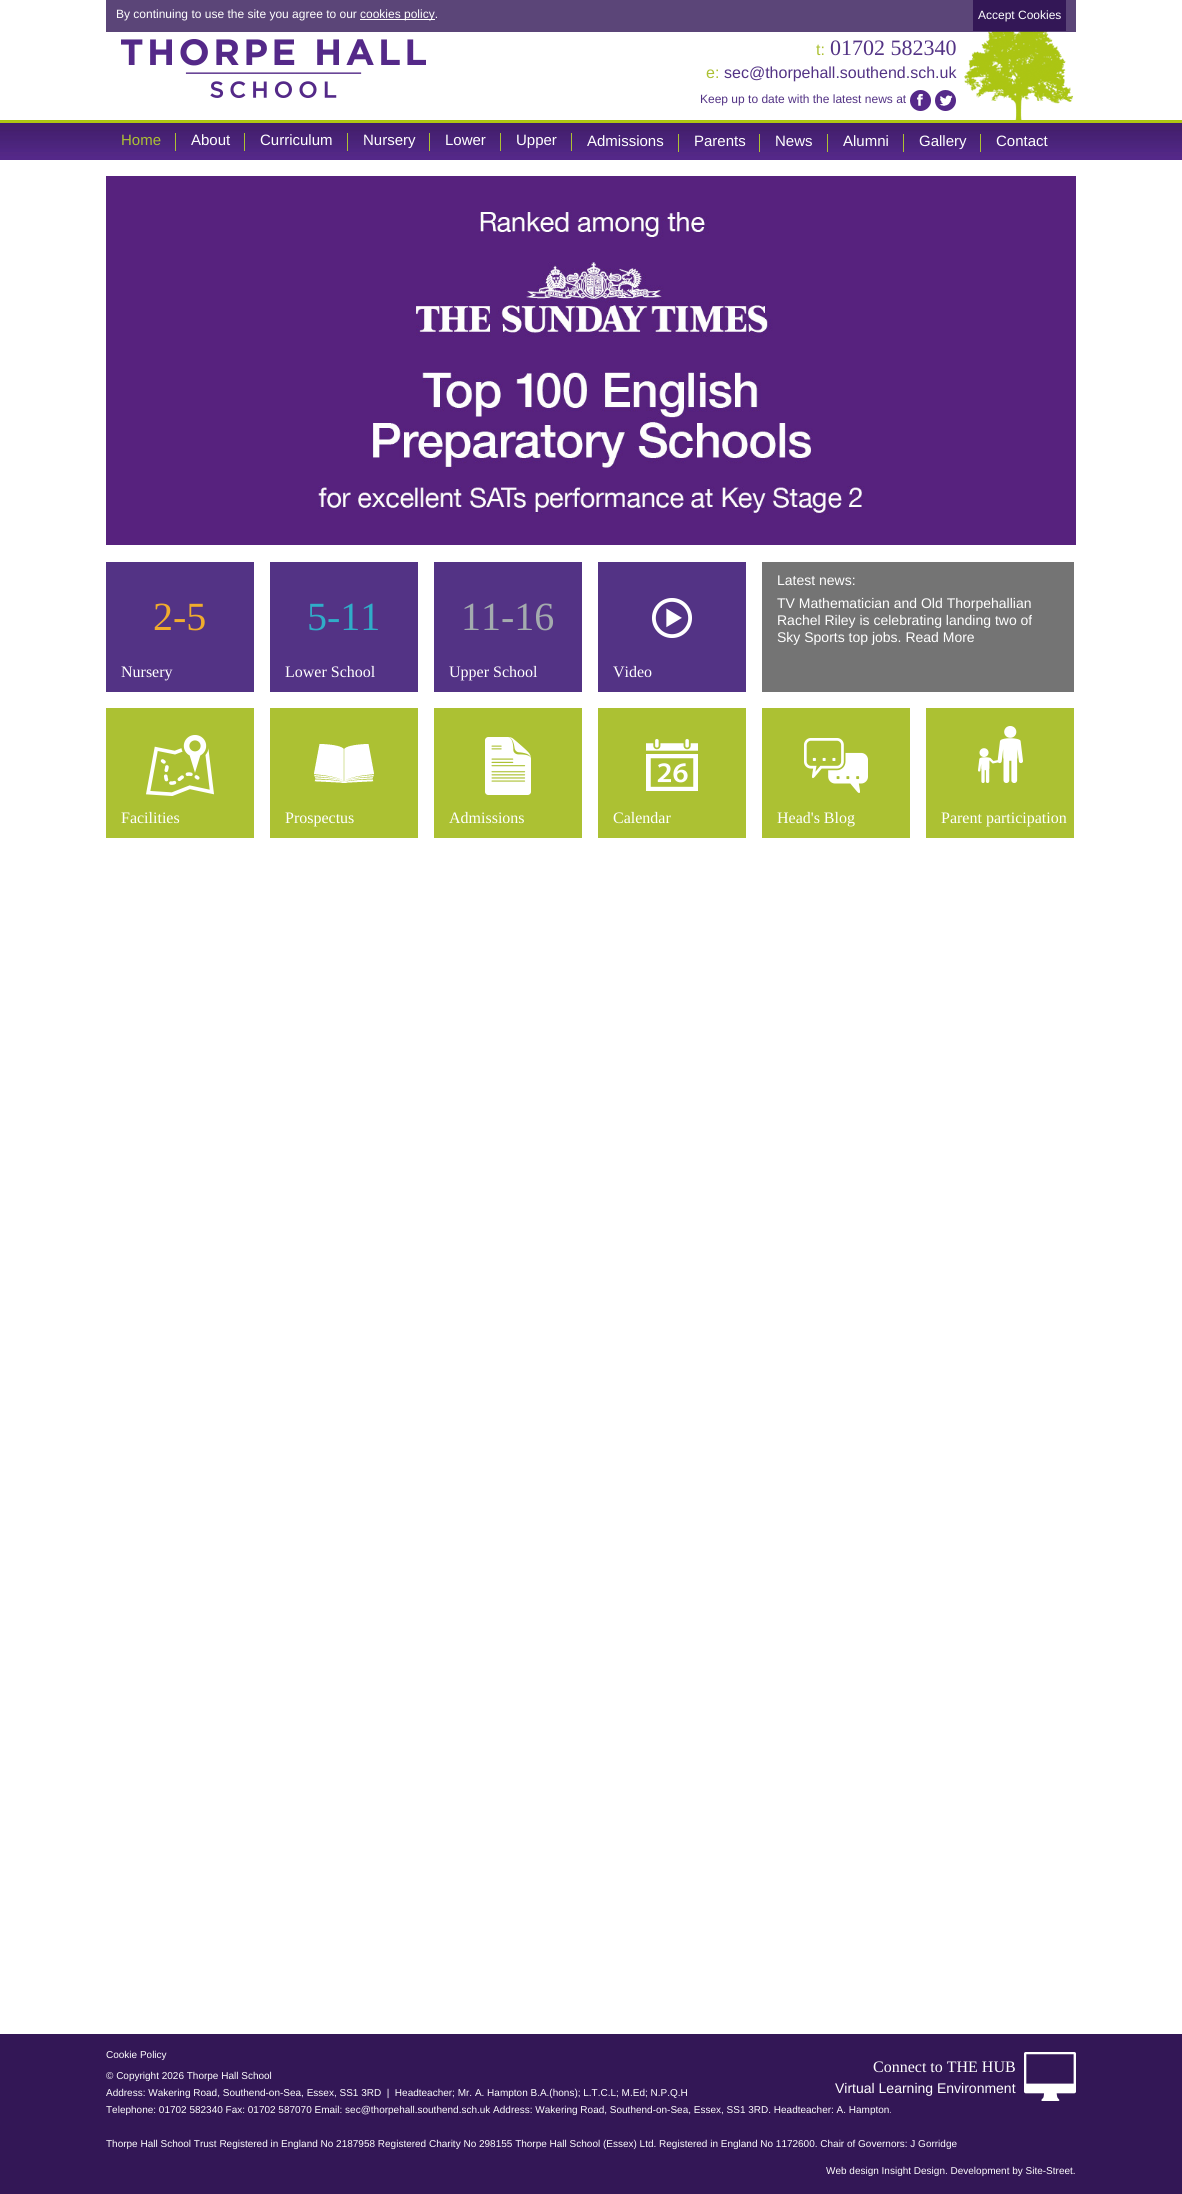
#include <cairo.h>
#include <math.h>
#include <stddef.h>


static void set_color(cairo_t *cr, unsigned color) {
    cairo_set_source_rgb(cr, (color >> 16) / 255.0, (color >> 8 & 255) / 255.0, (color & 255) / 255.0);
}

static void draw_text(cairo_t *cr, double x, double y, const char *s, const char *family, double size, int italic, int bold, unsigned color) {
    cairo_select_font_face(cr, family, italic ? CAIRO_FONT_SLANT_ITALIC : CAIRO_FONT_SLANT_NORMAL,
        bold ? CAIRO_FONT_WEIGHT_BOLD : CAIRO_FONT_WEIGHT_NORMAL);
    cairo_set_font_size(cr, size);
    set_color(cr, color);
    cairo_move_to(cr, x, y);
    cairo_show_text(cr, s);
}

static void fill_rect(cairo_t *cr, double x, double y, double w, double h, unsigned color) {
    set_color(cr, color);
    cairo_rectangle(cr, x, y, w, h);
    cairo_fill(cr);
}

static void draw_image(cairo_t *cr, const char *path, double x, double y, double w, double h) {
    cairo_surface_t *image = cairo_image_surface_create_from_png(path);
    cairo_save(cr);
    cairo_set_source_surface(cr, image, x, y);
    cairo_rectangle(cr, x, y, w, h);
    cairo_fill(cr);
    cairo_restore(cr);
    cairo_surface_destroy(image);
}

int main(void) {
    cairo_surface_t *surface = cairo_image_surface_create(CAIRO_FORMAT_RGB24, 1182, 2194);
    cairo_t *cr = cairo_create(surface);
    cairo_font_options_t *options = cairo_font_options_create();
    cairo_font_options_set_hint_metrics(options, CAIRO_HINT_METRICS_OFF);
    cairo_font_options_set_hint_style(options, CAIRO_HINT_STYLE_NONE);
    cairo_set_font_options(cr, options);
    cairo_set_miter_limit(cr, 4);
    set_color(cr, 0xFFFFFF);
    cairo_paint(cr);
    draw_image(cr, "assets/img1.png", 0, 120, 1182, 40);
    draw_image(cr, "assets/img2.png", 964, 24, 110, 96);
    cairo_set_source_rgba(cr, 0.2, 0.09, 0.337, 0.8);
    cairo_rectangle(cr, 106, 0, 970, 32);
    cairo_fill(cr);
    draw_text(cr, 116, 18, "By continuing to use the site you agree to our", "Liberation Sans", 12, 0, 0, 0xFFFFFF);
    fill_rect(cr, 360, 19, 75, 1, 0xFFFFFF);
    draw_text(cr, 360, 18, "cookies policy.", "Liberation Sans", 12, 0, 0, 0xFFFFFF);
    fill_rect(cr, 973, 0, 93, 31, 0x331756);
    draw_text(cr, 978, 19, "Accept Cookies", "Liberation Sans", 12, 0, 0, 0xFFFFFF);
    draw_image(cr, "assets/img3.png", 121, 39, 305, 59);
    draw_text(cr, 816, 55, "t:", "Liberation Sans", 16, 0, 0, 0xACC133);
    draw_text(cr, 830, 55, "01702 582340", "Liberation Serif", 22, 0, 0, 0x533385);
    draw_text(cr, 706, 78, "e:", "Liberation Sans", 16, 0, 0, 0xACC133);
    draw_text(cr, 724, 78, "sec@thorpehall.southend.sch.uk", "Liberation Sans", 16, 0, 0, 0x533385);
    draw_text(cr, 700, 103, "Keep up to date with the latest news at", "Liberation Sans", 12, 0, 0, 0x533385);
    draw_image(cr, "assets/img4.png", 910, 90, 21, 21);
    draw_image(cr, "assets/img5.png", 935, 90, 21, 21);
    fill_rect(cr, 175, 133, 1, 18, 0xACC133);
    draw_text(cr, 121, 145, "Home", "Liberation Sans", 15, 0, 0, 0xACC133);
    fill_rect(cr, 244, 133, 1, 18, 0xACC133);
    draw_text(cr, 191, 145, "About", "Liberation Sans", 15, 0, 0, 0xFFFFFF);
    fill_rect(cr, 347, 133, 1, 18, 0xACC133);
    draw_text(cr, 260, 145, "Curriculum", "Liberation Sans", 15, 0, 0, 0xFFFFFF);
    fill_rect(cr, 429, 133, 1, 18, 0xACC133);
    draw_text(cr, 363, 145, "Nursery", "Liberation Sans", 15, 0, 0, 0xFFFFFF);
    fill_rect(cr, 500, 133, 1, 18, 0xACC133);
    draw_text(cr, 445, 145, "Lower", "Liberation Sans", 15, 0, 0, 0xFFFFFF);
    fill_rect(cr, 571, 133, 1, 18, 0xACC133);
    draw_text(cr, 516, 145, "Upper", "Liberation Sans", 15, 0, 0, 0xFFFFFF);
    fill_rect(cr, 678, 134, 1, 18, 0xACC133);
    draw_text(cr, 587, 146, "Admissions", "Liberation Sans", 15, 0, 0, 0xFFFFFF);
    fill_rect(cr, 759, 134, 1, 18, 0xACC133);
    draw_text(cr, 694, 146, "Parents", "Liberation Sans", 15, 0, 0, 0xFFFFFF);
    fill_rect(cr, 827, 134, 1, 18, 0xACC133);
    draw_text(cr, 775, 146, "News", "Liberation Sans", 15, 0, 0, 0xFFFFFF);
    fill_rect(cr, 903, 134, 1, 18, 0xACC133);
    draw_text(cr, 843, 146, "Alumni", "Liberation Sans", 15, 0, 0, 0xFFFFFF);
    fill_rect(cr, 980, 134, 1, 18, 0xACC133);
    draw_text(cr, 919, 146, "Gallery", "Liberation Sans", 15, 0, 0, 0xFFFFFF);
    draw_text(cr, 996, 146, "Contact", "Liberation Sans", 15, 0, 0, 0xFFFFFF);
    draw_image(cr, "assets/img6.png", 106, 176, 970, 369);
    fill_rect(cr, 106, 562, 148, 130, 0x533385);
    draw_text(cr, 153, 630, "2-5", "Liberation Serif", 40, 0, 0, 0xF0AC2D);
    draw_text(cr, 121, 677, "Nursery", "Liberation Serif", 16, 0, 0, 0xFFFFFF);
    fill_rect(cr, 270, 562, 148, 130, 0x533385);
    draw_text(cr, 307, 630, "5-11", "Liberation Serif", 40, 0, 0, 0x30ADC8);
    draw_text(cr, 285, 677, "Lower School", "Liberation Serif", 16, 0, 0, 0xFFFFFF);
    fill_rect(cr, 434, 562, 148, 130, 0x533385);
    draw_text(cr, 461, 630, "11-16", "Liberation Serif", 40, 0, 0, 0xA4ABAE);
    draw_text(cr, 449, 677, "Upper School", "Liberation Serif", 16, 0, 0, 0xFFFFFF);
    fill_rect(cr, 598, 562, 148, 130, 0x533385);
    draw_image(cr, "assets/img7.png", 652, 598, 40, 40);
    draw_text(cr, 613, 677, "Video", "Liberation Serif", 16, 0, 0, 0xFFFFFF);
    fill_rect(cr, 762, 562, 312, 130, 0x747474);
    draw_text(cr, 777, 585, "Latest news:", "Liberation Sans", 14, 0, 0, 0xFFFFFF);
    draw_text(cr, 777, 608, "TV Mathematician and Old Thorpehallian", "Liberation Sans", 14, 0, 0, 0xFFFFFF);
    draw_text(cr, 777, 625, "Rachel Riley is celebrating landing two of", "Liberation Sans", 14, 0, 0, 0xFFFFFF);
    draw_text(cr, 777, 642, "Sky Sports top jobs. Read More", "Liberation Sans", 14, 0, 0, 0xFFFFFF);
    fill_rect(cr, 106, 708, 148, 130, 0xACC133);
    draw_image(cr, "assets/img8.png", 146, 735, 68, 61);
    draw_text(cr, 121, 823, "Facilities", "Liberation Serif", 16, 0, 0, 0xFFFFFF);
    fill_rect(cr, 270, 708, 148, 130, 0xACC133);
    draw_image(cr, "assets/img9.png", 314, 744, 60, 39);
    draw_text(cr, 285, 823, "Prospectus", "Liberation Serif", 16, 0, 0, 0xFFFFFF);
    fill_rect(cr, 434, 708, 148, 130, 0xACC133);
    draw_image(cr, "assets/img10.png", 485, 737, 46, 58);
    draw_text(cr, 449, 823, "Admissions", "Liberation Serif", 16, 0, 0, 0xFFFFFF);
    fill_rect(cr, 598, 708, 148, 130, 0xACC133);
    draw_image(cr, "assets/img11.png", 646, 739, 52, 52);
    draw_text(cr, 613, 823, "Calendar", "Liberation Serif", 16, 0, 0, 0xFFFFFF);
    fill_rect(cr, 762, 708, 148, 130, 0xACC133);
    draw_image(cr, "assets/img12.png", 804, 738, 64, 55);
    draw_text(cr, 777, 823, "Head's Blog", "Liberation Serif", 16, 0, 0, 0xFFFFFF);
    fill_rect(cr, 926, 708, 148, 130, 0xACC133);
    draw_image(cr, "assets/img13.png", 978, 726, 45, 57);
    draw_text(cr, 941, 823, "Parent participation", "Liberation Serif", 16, 0, 0, 0xFFFFFF);
    fill_rect(cr, 0, 2034, 1182, 160, 0x331756);
    draw_text(cr, 106, 2058, "Cookie Policy", "Liberation Sans", 10, 0, 0, 0xFFFFFF);
    draw_text(cr, 106, 2079, "© Copyright 2026 Thorpe Hall School", "Liberation Sans", 10, 0, 0, 0xFFFFFF);
    draw_text(cr, 106, 2096, "Address: Wakering Road, Southend-on-Sea, Essex, SS1 3RD  |  Headteacher; Mr. A. Hampton B.A.(hons); L.T.C.L; M.Ed; N.P.Q.H", "Liberation Sans", 10, 0, 0, 0xFFFFFF);
    draw_text(cr, 106, 2113, "Telephone: 01702 582340 Fax: 01702 587070 Email: sec@thorpehall.southend.sch.uk Address: Wakering Road, Southend-on-Sea, Essex, SS1 3RD. Headteacher: A. Hampton.", "Liberation Sans", 10, 0, 0, 0xFFFFFF);
    draw_text(cr, 106, 2147, "Thorpe Hall School Trust Registered in England No 2187958 Registered Charity No 298155 Thorpe Hall School (Essex) Ltd. Registered in England No 1172600. Chair of Governors: J Gorridge", "Liberation Sans", 10, 0, 0, 0xFFFFFF);
    draw_text(cr, 826, 2174, "Web design Insight Design. Development by Site-Street.", "Liberation Sans", 10, 0, 0, 0xFFFFFF);
    draw_image(cr, "assets/img14.png", 1024, 2052, 52, 49);
    draw_text(cr, 873, 2072, "Connect to THE HUB", "Liberation Serif", 16, 0, 0, 0xFFFFFF);
    draw_text(cr, 835, 2093, "Virtual Learning Environment", "Liberation Sans", 14, 0, 0, 0xFFFFFF);
    cairo_surface_write_to_png(surface, "output.png");
    cairo_font_options_destroy(options);
    cairo_destroy(cr);
    cairo_surface_destroy(surface);
    return 0;
}
